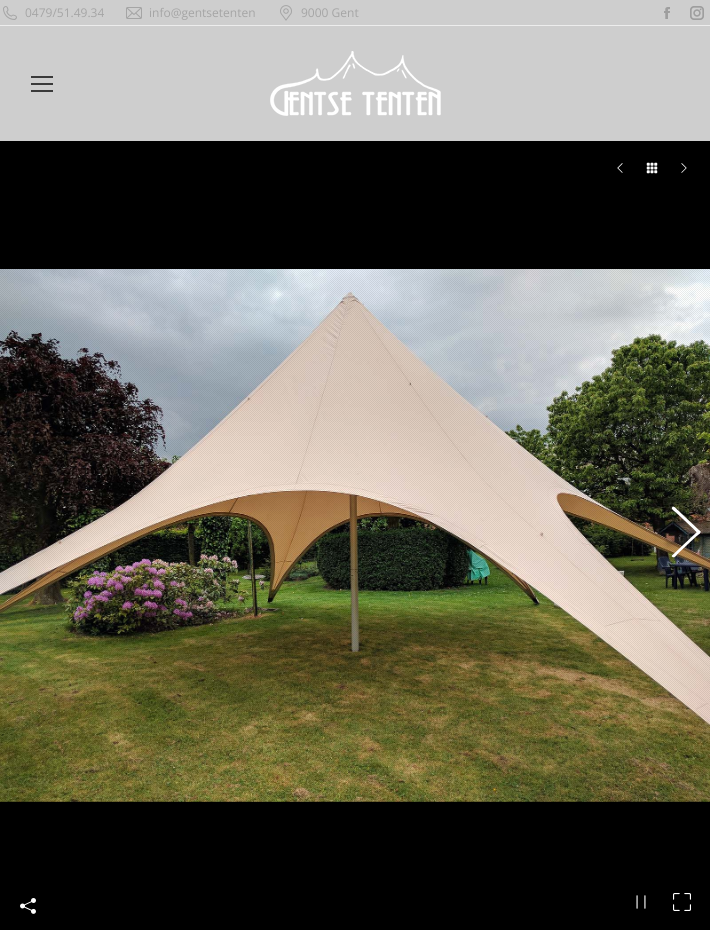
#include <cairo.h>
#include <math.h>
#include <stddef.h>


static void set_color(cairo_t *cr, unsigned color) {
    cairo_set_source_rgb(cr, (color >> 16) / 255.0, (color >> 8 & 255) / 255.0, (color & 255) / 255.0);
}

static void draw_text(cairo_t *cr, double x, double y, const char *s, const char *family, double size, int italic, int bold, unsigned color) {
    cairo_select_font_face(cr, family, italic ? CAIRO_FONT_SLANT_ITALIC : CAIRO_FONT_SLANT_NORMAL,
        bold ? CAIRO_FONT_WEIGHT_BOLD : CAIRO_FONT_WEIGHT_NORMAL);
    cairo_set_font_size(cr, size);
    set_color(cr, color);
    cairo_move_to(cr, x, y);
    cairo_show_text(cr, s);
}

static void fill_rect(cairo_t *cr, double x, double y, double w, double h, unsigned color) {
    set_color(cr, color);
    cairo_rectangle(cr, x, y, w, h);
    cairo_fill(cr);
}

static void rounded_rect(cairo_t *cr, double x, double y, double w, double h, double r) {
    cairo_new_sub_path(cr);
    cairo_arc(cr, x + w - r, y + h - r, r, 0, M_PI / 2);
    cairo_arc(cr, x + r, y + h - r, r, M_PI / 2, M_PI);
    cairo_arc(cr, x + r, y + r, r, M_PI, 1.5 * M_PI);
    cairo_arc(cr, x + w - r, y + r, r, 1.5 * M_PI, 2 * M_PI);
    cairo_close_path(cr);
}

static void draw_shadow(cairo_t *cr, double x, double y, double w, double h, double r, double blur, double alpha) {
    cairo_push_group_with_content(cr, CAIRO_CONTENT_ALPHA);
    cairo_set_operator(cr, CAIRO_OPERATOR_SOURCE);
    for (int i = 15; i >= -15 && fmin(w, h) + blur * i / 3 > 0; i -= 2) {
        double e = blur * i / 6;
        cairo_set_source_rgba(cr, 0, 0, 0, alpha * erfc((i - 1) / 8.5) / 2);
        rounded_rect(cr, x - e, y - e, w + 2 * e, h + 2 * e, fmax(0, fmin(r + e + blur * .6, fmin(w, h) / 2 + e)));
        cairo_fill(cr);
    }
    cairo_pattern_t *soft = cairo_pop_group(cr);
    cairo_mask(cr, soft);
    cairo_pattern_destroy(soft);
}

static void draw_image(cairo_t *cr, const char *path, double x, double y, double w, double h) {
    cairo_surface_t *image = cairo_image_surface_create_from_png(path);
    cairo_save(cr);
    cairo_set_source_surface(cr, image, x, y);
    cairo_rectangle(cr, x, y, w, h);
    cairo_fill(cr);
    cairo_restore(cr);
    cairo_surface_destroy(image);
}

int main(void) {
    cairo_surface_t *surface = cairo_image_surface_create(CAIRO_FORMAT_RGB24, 710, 930);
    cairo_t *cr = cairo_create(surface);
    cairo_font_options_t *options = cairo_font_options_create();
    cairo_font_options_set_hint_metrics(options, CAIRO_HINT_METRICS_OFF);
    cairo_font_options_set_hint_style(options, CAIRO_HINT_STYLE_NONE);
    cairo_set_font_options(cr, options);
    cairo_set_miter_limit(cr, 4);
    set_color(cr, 0x000000);
    cairo_paint(cr);
    fill_rect(cr, 0, 0, 710, 141, 0xCECECE);
    draw_image(cr, "assets/img1.png", 3, 6, 14, 14);
    draw_text(cr, 25, 17, "0479/51.49.34", "Open Sans", 12, 0, 0, 0xA5A5A5);
    draw_image(cr, "assets/img2.png", 126, 7, 16, 12);
    draw_text(cr, 149, 17, "info@gentsetenten", "Open Sans", 12, 0, 0, 0xA5A5A5);
    draw_image(cr, "assets/img3.png", 280, 5, 12, 16);
    draw_text(cr, 301, 17, "9000 Gent", "Open Sans", 12, 0, 0, 0xA5A5A5);
    draw_image(cr, "assets/img4.png", 664, 7, 6, 12);
    draw_image(cr, "assets/img5.png", 690, 6, 14, 14);
    fill_rect(cr, 0, 25, 710, 1, 0xEDEDED);
    fill_rect(cr, 31, 76, 22, 2, 0x3A3A3A);
    fill_rect(cr, 31, 83, 22, 2, 0x3A3A3A);
    fill_rect(cr, 31, 90, 22, 2, 0x3A3A3A);
    draw_image(cr, "assets/img6.png", 270, 51, 171, 65);
    draw_image(cr, "assets/img7.png", 617, 163, 6, 10);
    draw_image(cr, "assets/img8.png", 646, 162, 12, 12);
    draw_image(cr, "assets/img9.png", 681, 163, 6, 10);
    draw_image(cr, "assets/img10.png", 0, 269, 710, 533);
    draw_image(cr, "assets/img11.png", 0, 269, 710, 533);
    set_color(cr, 0x000000);
    draw_shadow(cr, 667, 519, 38, 3, 1.5, 2.5, 0.3);
    set_color(cr, 0xFFFFFF);
    cairo_new_path(cr);
    cairo_move_to(cr, 674.5, 507);
    cairo_line_to(cr, 700.5, 531.5);
    cairo_line_to(cr, 700, 533);
    cairo_curve_to(cr, 698.5, 535, 696, 531.5, 693.5, 529);
    cairo_line_to(cr, 676.5, 513);
    cairo_curve_to(cr, 675, 511.5, 671, 509.5, 672, 507.5);
    cairo_curve_to(cr, 672.5, 506.5, 673.5, 506.5, 674.5, 507);
    cairo_close_path(cr);
    cairo_fill(cr);
    set_color(cr, 0x000000);
    draw_shadow(cr, 667, 542, 38, 3, 1.5, 2.5, 0.3);
    set_color(cr, 0xFFFFFF);
    cairo_new_path(cr);
    cairo_move_to(cr, 672.5, 555);
    cairo_line_to(cr, 698.5, 530.5);
    cairo_line_to(cr, 700, 531);
    cairo_curve_to(cr, 702, 532.5, 698, 535, 695.5, 537);
    cairo_line_to(cr, 678.5, 553);
    cairo_curve_to(cr, 677, 554.5, 674.5, 558.5, 672.5, 557);
    cairo_curve_to(cr, 671.5, 556.5, 671.5, 555.5, 672.5, 555);
    cairo_close_path(cr);
    cairo_fill(cr);
    draw_image(cr, "assets/img12.png", 20, 898, 16, 16);
    draw_image(cr, "assets/img13.png", 636, 895, 10, 14);
    draw_image(cr, "assets/img14.png", 673, 893, 18, 18);
    cairo_surface_write_to_png(surface, "output.png");
    cairo_font_options_destroy(options);
    cairo_destroy(cr);
    cairo_surface_destroy(surface);
    return 0;
}
